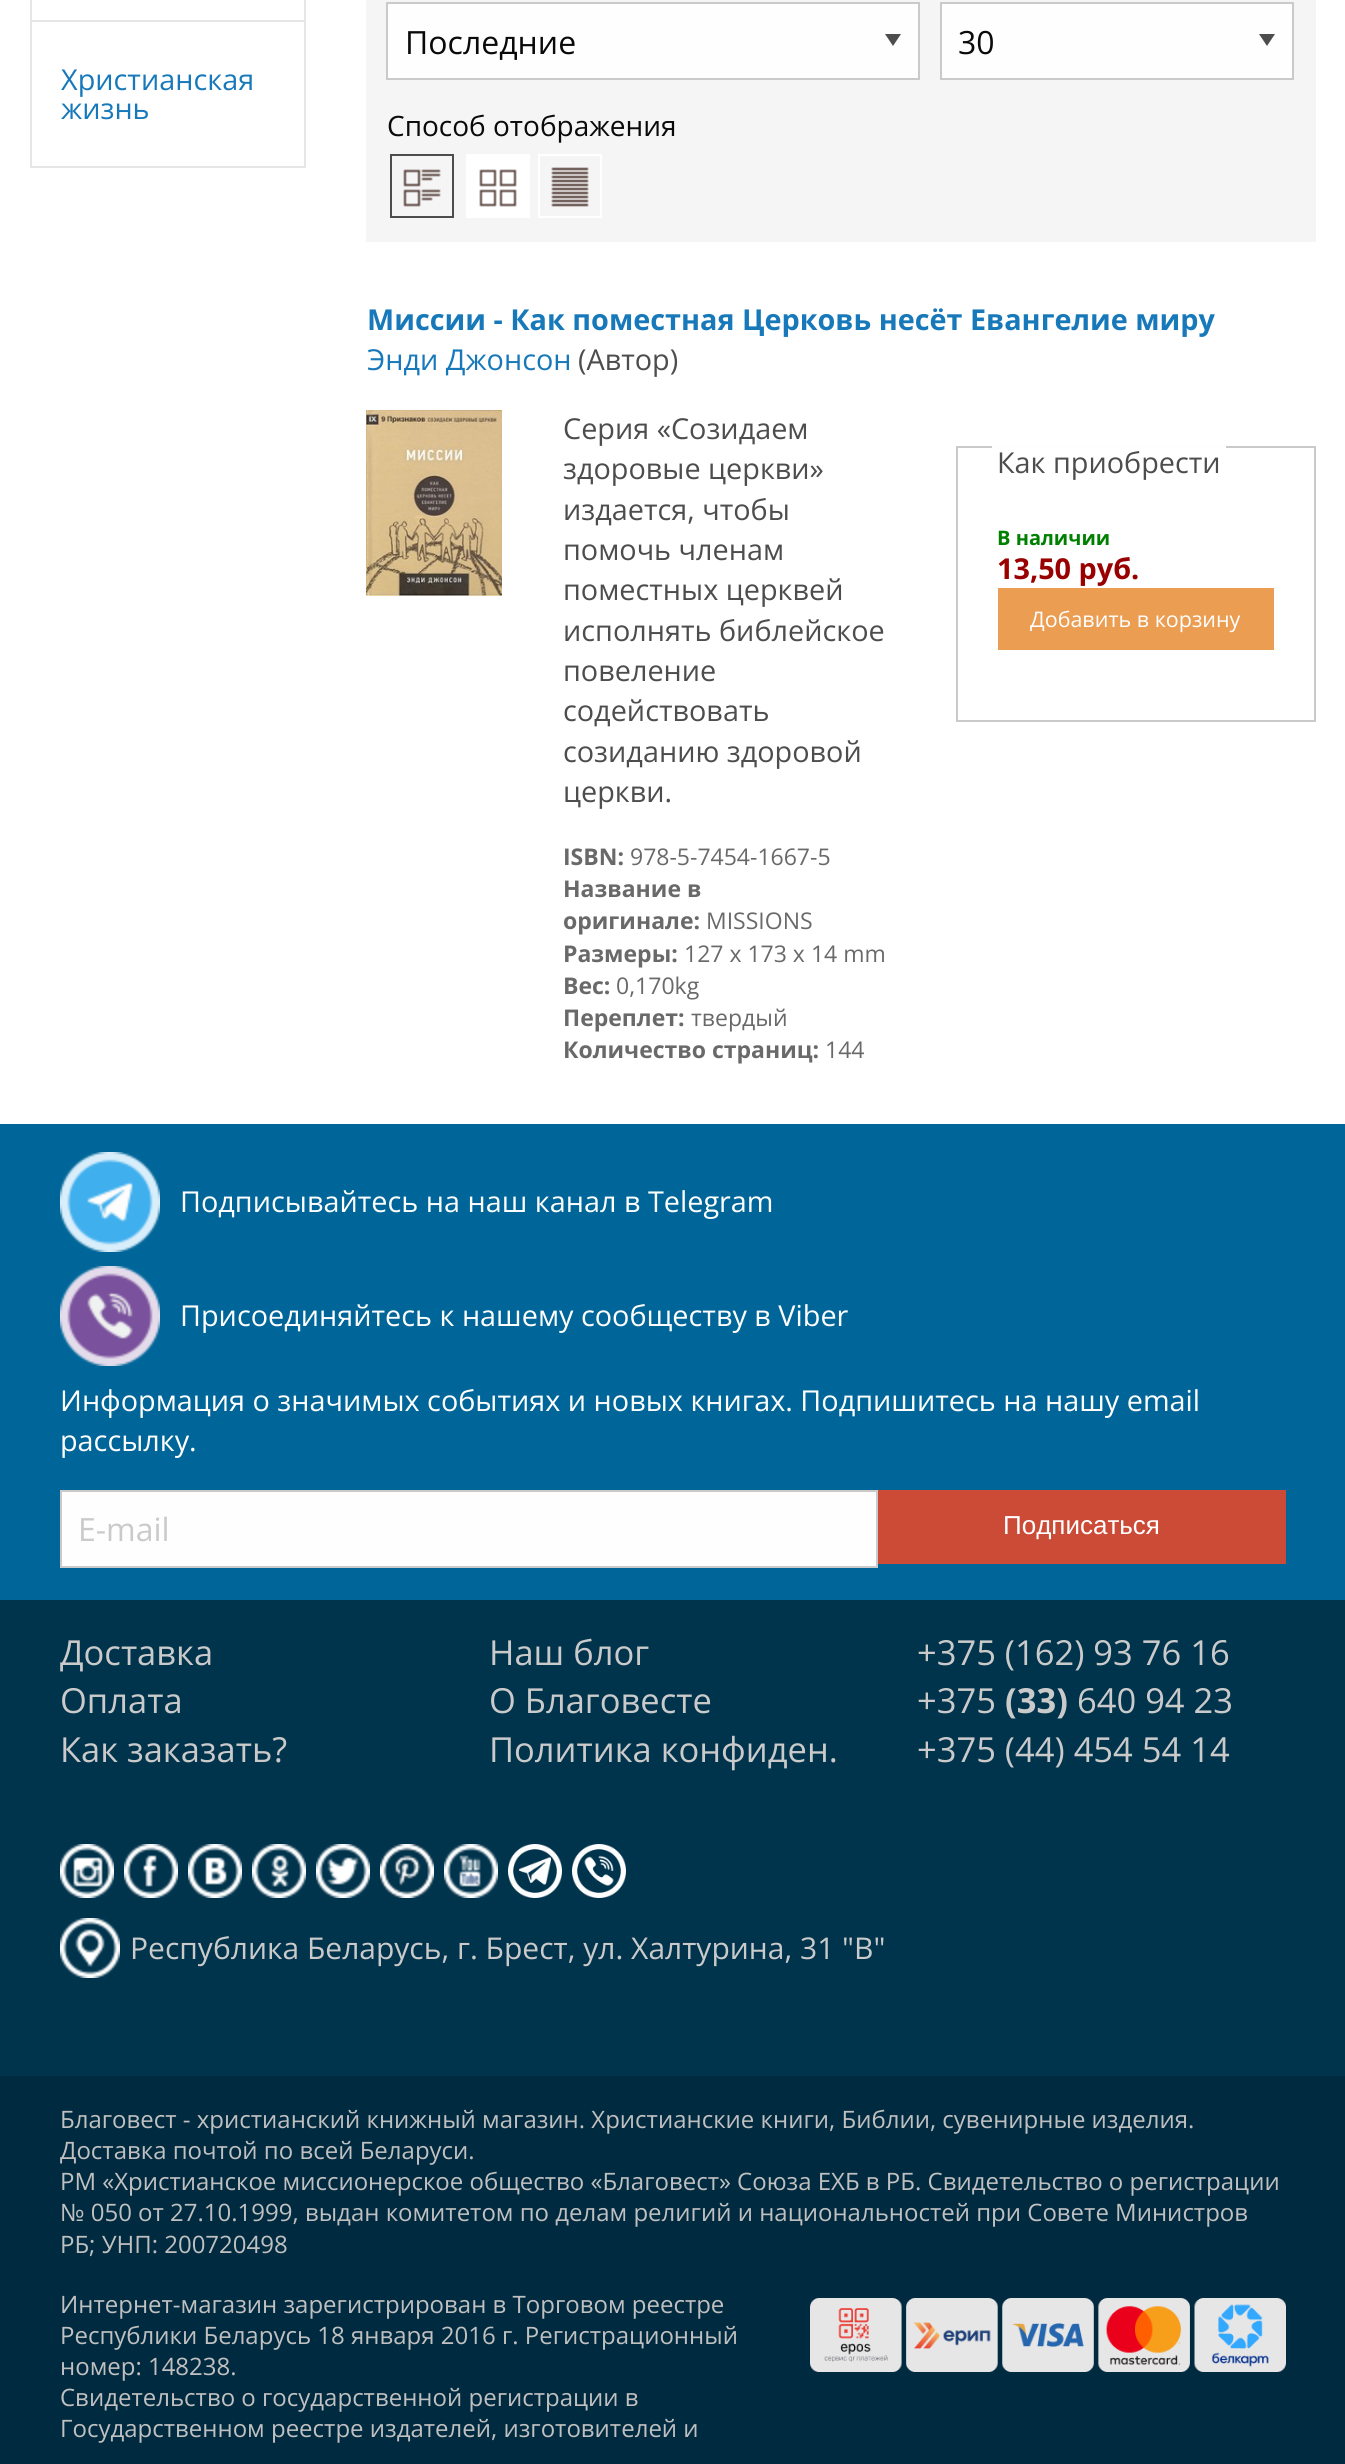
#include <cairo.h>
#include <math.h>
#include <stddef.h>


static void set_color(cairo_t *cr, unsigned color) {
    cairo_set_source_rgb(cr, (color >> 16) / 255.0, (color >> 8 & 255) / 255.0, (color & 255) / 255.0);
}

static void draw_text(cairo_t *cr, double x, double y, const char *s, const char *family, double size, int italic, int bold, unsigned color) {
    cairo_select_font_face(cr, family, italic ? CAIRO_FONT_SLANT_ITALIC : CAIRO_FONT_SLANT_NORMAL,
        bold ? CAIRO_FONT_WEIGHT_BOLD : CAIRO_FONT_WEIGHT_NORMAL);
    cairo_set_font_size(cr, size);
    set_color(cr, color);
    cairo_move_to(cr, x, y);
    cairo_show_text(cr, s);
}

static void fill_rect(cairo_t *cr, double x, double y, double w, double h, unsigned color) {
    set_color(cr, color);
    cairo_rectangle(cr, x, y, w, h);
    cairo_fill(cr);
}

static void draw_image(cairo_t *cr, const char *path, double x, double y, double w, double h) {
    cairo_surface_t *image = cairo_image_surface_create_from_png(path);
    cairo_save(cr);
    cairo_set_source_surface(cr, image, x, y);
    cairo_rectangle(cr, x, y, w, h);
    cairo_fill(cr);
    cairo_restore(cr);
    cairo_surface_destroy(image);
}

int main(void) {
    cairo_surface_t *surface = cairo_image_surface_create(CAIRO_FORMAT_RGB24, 1345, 2464);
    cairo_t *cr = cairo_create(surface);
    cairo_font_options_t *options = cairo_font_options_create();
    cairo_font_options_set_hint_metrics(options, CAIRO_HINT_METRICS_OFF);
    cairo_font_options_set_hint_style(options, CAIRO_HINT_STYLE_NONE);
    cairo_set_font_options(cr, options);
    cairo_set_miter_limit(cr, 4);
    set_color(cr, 0xFFFFFF);
    cairo_paint(cr);
    fill_rect(cr, 304, 0, 2, 20, 0xE6E6E6);
    fill_rect(cr, 30, 0, 2, 20, 0xE6E6E6);
    cairo_rectangle(cr, 31, 21, 274, 146);
    cairo_stroke(cr);
    draw_text(cr, 61, 90, "Христианская", "Open Sans", 28.8, 0, 0, 0x1779BA);
    draw_text(cr, 61, 119, "жизнь", "Open Sans", 28.8, 0, 0, 0x1779BA);
    fill_rect(cr, 366, 0, 950, 242, 0xF5F5F5);
    fill_rect(cr, 388, 4, 530, 74, 0xFEFEFE);
    set_color(cr, 0x4D4D4D);
    cairo_new_path(cr);
    cairo_move_to(cr, 885, 34);
    cairo_line_to(cr, 901, 34);
    cairo_line_to(cr, 893, 46);
    cairo_close_path(cr);
    cairo_fill(cr);
    cairo_rectangle(cr, 387, 3, 532, 76);
    set_color(cr, 0xCACACA);
    cairo_stroke(cr);
    draw_text(cr, 405, 54, "Последние", "Open Sans", 32, 0, 0, 0x0A0A0A);
    fill_rect(cr, 942, 4, 350, 74, 0xFEFEFE);
    set_color(cr, 0x4D4D4D);
    cairo_new_path(cr);
    cairo_move_to(cr, 1259, 34);
    cairo_line_to(cr, 1275, 34);
    cairo_line_to(cr, 1267, 46);
    cairo_close_path(cr);
    cairo_fill(cr);
    cairo_rectangle(cr, 941, 3, 352, 76);
    set_color(cr, 0xCACACA);
    cairo_stroke(cr);
    draw_text(cr, 958, 54, "30", "Open Sans", 32, 0, 0, 0x0A0A0A);
    draw_text(cr, 387, 136, "Способ отображения", "Open Sans", 28, 0, 0, 0x0A0A0A);
    draw_image(cr, "assets/img1.png", 403, 169, 38, 38);
    cairo_rectangle(cr, 391, 155, 62, 62);
    set_color(cr, 0x4D4D4D);
    cairo_stroke(cr);
    fill_rect(cr, 466, 154, 64, 64, 0xFFFFFF);
    draw_image(cr, "assets/img2.png", 479, 169, 38, 38);
    draw_image(cr, "assets/img3.png", 551, 167, 38, 40);
    cairo_rectangle(cr, 539, 155, 62, 62);
    cairo_stroke(cr);
    draw_text(cr, 367, 330, "Миссии - Как поместная Церковь несёт Евангелие миру", "Open Sans", 28.8, 0, 1, 0x1779BA);
    draw_text(cr, 367, 370, "Энди Джонсон", "Open Sans", 28.8, 0, 0, 0x1779BA);
    draw_text(cr, 578, 370, "(Автор)", "Open Sans", 28.8, 0, 0, 0x4D4D4D);
    draw_image(cr, "assets/img4.png", 366, 410, 136, 186);
    draw_text(cr, 563, 439, "Серия «Созидаем", "Open Sans", 28.8, 0, 0, 0x4D4D4D);
    draw_text(cr, 563, 479, "здоровые церкви»", "Open Sans", 28.8, 0, 0, 0x4D4D4D);
    draw_text(cr, 563, 520, "издается, чтобы", "Open Sans", 28.8, 0, 0, 0x4D4D4D);
    draw_text(cr, 563, 560, "помочь членам", "Open Sans", 28.8, 0, 0, 0x4D4D4D);
    draw_text(cr, 563, 600, "поместных церквей", "Open Sans", 28.8, 0, 0, 0x4D4D4D);
    draw_text(cr, 563, 641, "исполнять библейское", "Open Sans", 28.8, 0, 0, 0x4D4D4D);
    draw_text(cr, 563, 681, "повеление", "Open Sans", 28.8, 0, 0, 0x4D4D4D);
    draw_text(cr, 563, 721, "содействовать", "Open Sans", 28.8, 0, 0, 0x4D4D4D);
    draw_text(cr, 563, 762, "созиданию здоровой", "Open Sans", 28.8, 0, 0, 0x4D4D4D);
    draw_text(cr, 563, 802, "церкви.", "Open Sans", 28.8, 0, 0, 0x4D4D4D);
    draw_text(cr, 563, 865, "ISBN:", "Open Sans", 23, 0, 1, 0x696969);
    draw_text(cr, 630, 865, "978-5-7454-1667-5", "Open Sans", 23, 0, 0, 0x696969);
    draw_text(cr, 563, 897, "Название в", "Open Sans", 23, 0, 1, 0x696969);
    draw_text(cr, 563, 929, "оригинале:", "Open Sans", 23, 0, 1, 0x696969);
    draw_text(cr, 706, 929, "MISSIONS", "Open Sans", 23, 0, 0, 0x696969);
    draw_text(cr, 563, 962, "Размеры:", "Open Sans", 23, 0, 1, 0x696969);
    draw_text(cr, 684, 962, "127 x 173 x 14 mm", "Open Sans", 23, 0, 0, 0x696969);
    draw_text(cr, 563, 994, "Вес:", "Open Sans", 23, 0, 1, 0x696969);
    draw_text(cr, 616, 994, "0,170kg", "Open Sans", 23, 0, 0, 0x696969);
    draw_text(cr, 563, 1026, "Переплет:", "Open Sans", 23, 0, 1, 0x696969);
    draw_text(cr, 691, 1026, "твердый", "Open Sans", 23, 0, 0, 0x696969);
    draw_text(cr, 563, 1058, "Количество страниц:", "Open Sans", 23, 0, 1, 0x696969);
    draw_text(cr, 825, 1058, "144", "Open Sans", 23, 0, 0, 0x696969);
    cairo_rectangle(cr, 957, 447, 358, 274);
    set_color(cr, 0xCACACA);
    cairo_stroke(cr);
    fill_rect(cr, 992, 446, 234, 2, 0xFEFEFE);
    draw_text(cr, 997, 473, "Как приобрести", "Open Sans", 28.8, 0, 0, 0x4D4D4D);
    draw_text(cr, 997, 545, "В наличии", "Open Sans", 20, 0, 1, 0x008000);
    draw_text(cr, 997, 579, "13,50 руб.", "Open Sans", 28.8, 0, 1, 0x990000);
    fill_rect(cr, 998, 588, 276, 62, 0xEB9D52);
    draw_text(cr, 1030, 627, "Добавить в корзину", "Open Sans", 21.5, 0, 0, 0xFFFFFF);
    fill_rect(cr, 0, 1124, 1345, 476, 0x006699);
    draw_image(cr, "assets/img5.png", 60, 1152, 100, 100);
    draw_text(cr, 180, 1212, "Подписывайтесь на наш канал в Telegram", "Open Sans", 28.8, 0, 0, 0xFFFFFF);
    draw_image(cr, "assets/img6.png", 60, 1266, 100, 100);
    draw_text(cr, 180, 1326, "Присоединяйтесь к нашему сообществу в Viber", "Open Sans", 28.8, 0, 0, 0xFFFFFF);
    draw_text(cr, 60, 1411, "Информация о значимых событиях и новых книгах. Подпишитесь на нашу email", "Open Sans", 28.8, 0, 0, 0xFFFFFF);
    draw_text(cr, 60, 1451, "рассылку.", "Open Sans", 28.8, 0, 0, 0xFFFFFF);
    set_color(cr, 0xFEFEFE);
    cairo_rectangle(cr, 61, 1491, 816, 76);
    cairo_fill_preserve(cr);
    set_color(cr, 0xCACACA);
    cairo_stroke(cr);
    draw_text(cr, 78, 1541, "E-mail", "Open Sans", 32, 0, 0, 0xCACACA);
    fill_rect(cr, 878, 1490, 408, 74, 0xCC4B37);
    draw_text(cr, 1003, 1534, "Подписаться", "Liberation Sans", 26, 0, 0, 0xFFFFFF);
    fill_rect(cr, 0, 1600, 1345, 476, 0x00334C);
    draw_text(cr, 60, 1665, "Доставка", "Open Sans", 34.5, 0, 0, 0xCACACA);
    draw_text(cr, 60, 1713, "Оплата", "Open Sans", 34.5, 0, 0, 0xCACACA);
    draw_text(cr, 60, 1762, "Как заказать?", "Open Sans", 34.5, 0, 0, 0xCACACA);
    draw_text(cr, 489, 1665, "Наш блог", "Open Sans", 34.5, 0, 0, 0xCACACA);
    draw_text(cr, 489, 1713, "О Благовесте", "Open Sans", 34.5, 0, 0, 0xCACACA);
    draw_text(cr, 489, 1762, "Политика конфиден.", "Open Sans", 34.5, 0, 0, 0xCACACA);
    draw_text(cr, 917, 1665, "+375 (162) 93 76 16", "Open Sans", 34.5, 0, 0, 0xCACACA);
    draw_text(cr, 917, 1713, "+375", "Open Sans", 34.5, 0, 0, 0xCACACA);
    draw_text(cr, 1005, 1713, "(33)", "Open Sans", 34.5, 0, 1, 0xCACACA);
    draw_text(cr, 1077, 1713, "640 94 23", "Open Sans", 34.5, 0, 0, 0xCACACA);
    draw_text(cr, 917, 1762, "+375 (44) 454 54 14", "Open Sans", 34.5, 0, 0, 0xCACACA);
    draw_image(cr, "assets/img7.png", 60, 1844, 54, 54);
    draw_image(cr, "assets/img8.png", 124, 1844, 54, 54);
    draw_image(cr, "assets/img9.png", 188, 1844, 54, 54);
    draw_image(cr, "assets/img10.png", 252, 1844, 54, 54);
    draw_image(cr, "assets/img11.png", 316, 1844, 54, 54);
    draw_image(cr, "assets/img12.png", 380, 1844, 54, 54);
    draw_image(cr, "assets/img13.png", 444, 1844, 54, 54);
    draw_image(cr, "assets/img14.png", 508, 1844, 54, 54);
    draw_image(cr, "assets/img15.png", 572, 1844, 54, 54);
    draw_image(cr, "assets/img16.png", 60, 1918, 60, 60);
    draw_text(cr, 130, 1959, "Республика Беларусь, г. Брест, ул. Халтурина, 31 \"В\"", "Open Sans", 30, 0, 0, 0xCACACA);
    fill_rect(cr, 0, 2076, 1345, 388, 0x002A40);
    draw_text(cr, 60, 2128, "Благовест - христианский книжный магазин. Христианские книги, Библии, сувенирные изделия.", "Open Sans", 24, 0, 0, 0xC0C0C0);
    draw_text(cr, 60, 2159, "Доставка почтой по всей Беларуси.", "Open Sans", 24, 0, 0, 0xC0C0C0);
    draw_text(cr, 60, 2190, "РМ «Христианское миссионерское общество «Благовест» Союза ЕХБ в РБ. Свидетельство о регистрации", "Open Sans", 24, 0, 0, 0xC0C0C0);
    draw_text(cr, 60, 2221, "№ 050 от 27.10.1999, выдан комитетом по делам религий и национальностей при Совете Министров", "Open Sans", 24, 0, 0, 0xC0C0C0);
    draw_text(cr, 60, 2253, "РБ; УНП: 200720498", "Open Sans", 24, 0, 0, 0xC0C0C0);
    draw_text(cr, 60, 2313, "Интернет-магазин зарегистрирован в Торговом реестре", "Open Sans", 24, 0, 0, 0xC0C0C0);
    draw_text(cr, 60, 2344, "Республики Беларусь 18 января 2016 г. Регистрационный", "Open Sans", 24, 0, 0, 0xC0C0C0);
    draw_text(cr, 60, 2375, "номер: 148238.", "Open Sans", 24, 0, 0, 0xC0C0C0);
    draw_text(cr, 60, 2406, "Свидетельство о государственной регистрации в", "Open Sans", 24, 0, 0, 0xC0C0C0);
    draw_text(cr, 60, 2437, "Государственном реестре издателей, изготовителей и", "Open Sans", 24, 0, 0, 0xC0C0C0);
    draw_image(cr, "assets/img17.png", 810, 2298, 476, 74);
    cairo_surface_write_to_png(surface, "output.png");
    cairo_font_options_destroy(options);
    cairo_destroy(cr);
    cairo_surface_destroy(surface);
    return 0;
}
